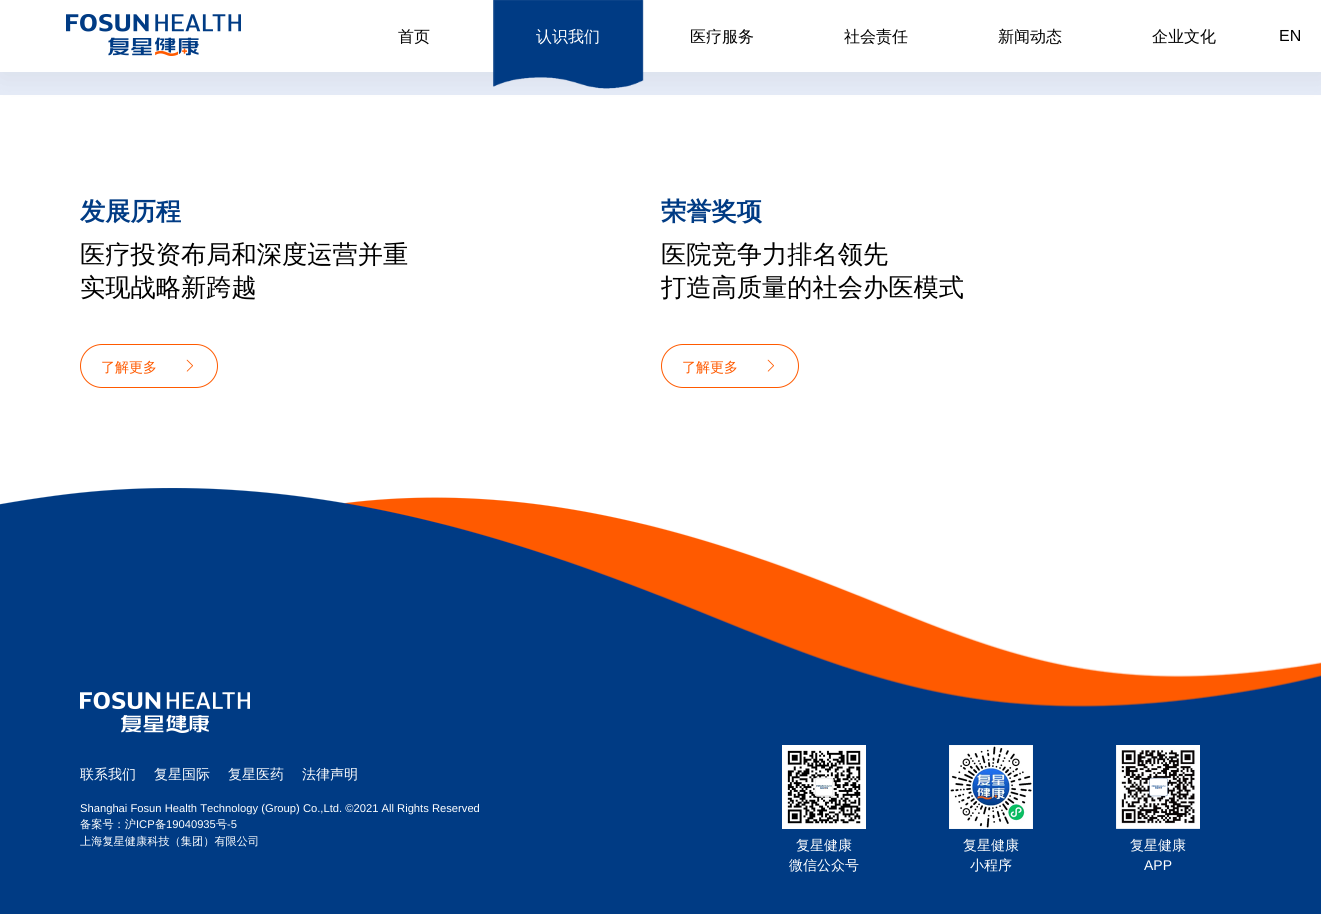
#include <cairo.h>
#include <math.h>
#include <stddef.h>


static void set_color(cairo_t *cr, unsigned color) {
    cairo_set_source_rgb(cr, (color >> 16) / 255.0, (color >> 8 & 255) / 255.0, (color & 255) / 255.0);
}

static void draw_text(cairo_t *cr, double x, double y, const char *s, const char *family, double size, int italic, int bold, unsigned color) {
    cairo_select_font_face(cr, family, italic ? CAIRO_FONT_SLANT_ITALIC : CAIRO_FONT_SLANT_NORMAL,
        bold ? CAIRO_FONT_WEIGHT_BOLD : CAIRO_FONT_WEIGHT_NORMAL);
    cairo_set_font_size(cr, size);
    set_color(cr, color);
    cairo_move_to(cr, x, y);
    cairo_show_text(cr, s);
}

static void fill_rect(cairo_t *cr, double x, double y, double w, double h, unsigned color) {
    set_color(cr, color);
    cairo_rectangle(cr, x, y, w, h);
    cairo_fill(cr);
}

static void rounded_rect(cairo_t *cr, double x, double y, double w, double h, double r) {
    cairo_new_sub_path(cr);
    cairo_arc(cr, x + w - r, y + h - r, r, 0, M_PI / 2);
    cairo_arc(cr, x + r, y + h - r, r, M_PI / 2, M_PI);
    cairo_arc(cr, x + r, y + r, r, M_PI, 1.5 * M_PI);
    cairo_arc(cr, x + w - r, y + r, r, 1.5 * M_PI, 2 * M_PI);
    cairo_close_path(cr);
}

static void draw_shadow(cairo_t *cr, double x, double y, double w, double h, double r, double blur, double alpha) {
    cairo_push_group_with_content(cr, CAIRO_CONTENT_ALPHA);
    cairo_set_operator(cr, CAIRO_OPERATOR_SOURCE);
    for (int i = 15; i >= -15 && fmin(w, h) + blur * i / 3 > 0; i -= 2) {
        double e = blur * i / 6;
        cairo_set_source_rgba(cr, 0, 0, 0, alpha * erfc((i - 1) / 8.5) / 2);
        rounded_rect(cr, x - e, y - e, w + 2 * e, h + 2 * e, fmax(0, fmin(r + e + blur * .6, fmin(w, h) / 2 + e)));
        cairo_fill(cr);
    }
    cairo_pattern_t *soft = cairo_pop_group(cr);
    cairo_mask(cr, soft);
    cairo_pattern_destroy(soft);
}

static void draw_image(cairo_t *cr, const char *path, double x, double y, double w, double h) {
    cairo_surface_t *image = cairo_image_surface_create_from_png(path);
    cairo_save(cr);
    cairo_set_source_surface(cr, image, x, y);
    cairo_rectangle(cr, x, y, w, h);
    cairo_fill(cr);
    cairo_restore(cr);
    cairo_surface_destroy(image);
}

int main(void) {
    cairo_surface_t *surface = cairo_image_surface_create(CAIRO_FORMAT_RGB24, 1321, 914);
    cairo_t *cr = cairo_create(surface);
    cairo_font_options_t *options = cairo_font_options_create();
    cairo_font_options_set_hint_metrics(options, CAIRO_HINT_METRICS_OFF);
    cairo_font_options_set_hint_style(options, CAIRO_HINT_STYLE_NONE);
    cairo_set_font_options(cr, options);
    cairo_set_miter_limit(cr, 4);
    set_color(cr, 0xFFFFFF);
    cairo_paint(cr);
    fill_rect(cr, 0, 72, 1321, 23, 0xE5EBF7);
    set_color(cr, 0x000000);
    draw_shadow(cr, 2, 2, 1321, 72, 0, 15, 0.07);
    fill_rect(cr, 0, 0, 1321, 72, 0xFFFFFF);
    draw_image(cr, "assets/img1.png", 66, 14, 175, 42);
    draw_text(cr, 398, 42, "首页", "WenQuanYi Zen Hei Medium", 16, 0, 0, 0x000000);
    draw_image(cr, "assets/img2.png", 493, 0, 151, 89);
    draw_text(cr, 536, 42, "认识我们", "WenQuanYi Zen Hei Medium", 16, 0, 0, 0xFFFFFF);
    draw_text(cr, 690, 42, "医疗服务", "WenQuanYi Zen Hei Medium", 16, 0, 0, 0x000000);
    draw_text(cr, 844, 42, "社会责任", "WenQuanYi Zen Hei Medium", 16, 0, 0, 0x000000);
    draw_text(cr, 998, 42, "新闻动态", "WenQuanYi Zen Hei Medium", 16, 0, 0, 0x000000);
    draw_text(cr, 1152, 42, "企业文化", "WenQuanYi Zen Hei Medium", 16, 0, 0, 0x000000);
    draw_text(cr, 1279, 41, "EN", "Liberation Sans", 16, 0, 0, 0x000000);
    draw_text(cr, 80, 220, "发展历程", "WenQuanYi Zen Hei", 25.25, 0, 1, 0x003B84);
    draw_text(cr, 80, 263, "医疗投资布局和深度运营并重", "WenQuanYi Zen Hei Medium", 25.25, 0, 0, 0x000000);
    draw_text(cr, 80, 296, "实现战略新跨越", "WenQuanYi Zen Hei Medium", 25.25, 0, 0, 0x000000);
    rounded_rect(cr, 80.5, 344.5, 137, 43, 21.5);
    set_color(cr, 0xFF5A00);
    cairo_set_line_width(cr, 1);
    cairo_stroke(cr);
    draw_text(cr, 101, 372, "了解更多", "WenQuanYi Zen Hei Medium", 14, 0, 0, 0xFF5A00);
    draw_image(cr, "assets/img3.png", 186, 359, 7, 13);
    draw_text(cr, 661, 220, "荣誉奖项", "WenQuanYi Zen Hei", 25.25, 0, 1, 0x003B84);
    draw_text(cr, 661, 263, "医院竞争力排名领先", "WenQuanYi Zen Hei Medium", 25.25, 0, 0, 0x000000);
    draw_text(cr, 661, 296, "打造高质量的社会办医模式", "WenQuanYi Zen Hei Medium", 25.25, 0, 0, 0x000000);
    rounded_rect(cr, 661.5, 344.5, 137, 43, 21.5);
    set_color(cr, 0xFF5A00);
    cairo_stroke(cr);
    draw_text(cr, 682, 372, "了解更多", "WenQuanYi Zen Hei Medium", 14, 0, 0, 0xFF5A00);
    draw_image(cr, "assets/img3.png", 767, 359, 7, 13);
    draw_image(cr, "assets/img4.png", 0, 488, 1321, 426);
    draw_image(cr, "assets/img5.png", 80, 692, 170, 41);
    draw_text(cr, 80, 779, "联系我们", "WenQuanYi Zen Hei Medium", 14, 0, 0, 0xFFFFFF);
    draw_text(cr, 154, 779, "复星国际", "WenQuanYi Zen Hei Medium", 14, 0, 0, 0xFFFFFF);
    draw_text(cr, 228, 779, "复星医药", "WenQuanYi Zen Hei Medium", 14, 0, 0, 0xFFFFFF);
    draw_text(cr, 302, 779, "法律声明", "WenQuanYi Zen Hei Medium", 14, 0, 0, 0xFFFFFF);
    draw_text(cr, 80, 812, "Shanghai Fosun Health Technology (Group) Co.,Ltd. ©2021 All Rights Reserved", "Liberation Sans", 11.2, 0, 0, 0xFFFFFF);
    draw_text(cr, 80, 828, "备案号：沪", "WenQuanYi Zen Hei Medium", 11.2, 0, 0, 0xFFFFFF);
    draw_text(cr, 136, 828, "ICP", "Liberation Sans", 11.2, 0, 0, 0xFFFFFF);
    draw_text(cr, 155, 828, "备", "WenQuanYi Zen Hei Medium", 11.2, 0, 0, 0xFFFFFF);
    draw_text(cr, 166, 828, "19040935", "Liberation Sans", 11.2, 0, 0, 0xFFFFFF);
    draw_text(cr, 216, 828, "号", "WenQuanYi Zen Hei Medium", 11.2, 0, 0, 0xFFFFFF);
    draw_text(cr, 227, 828, "-5", "Liberation Sans", 11.2, 0, 0, 0xFFFFFF);
    draw_text(cr, 80, 845, "上海复星健康科技（集团）有限公司", "WenQuanYi Zen Hei Medium", 11.2, 0, 0, 0xFFFFFF);
    draw_image(cr, "assets/img6.png", 782, 745, 84, 84);
    draw_text(cr, 796, 850, "复星健康", "WenQuanYi Zen Hei Medium", 14, 0, 0, 0xFFFFFF);
    draw_text(cr, 789, 870, "微信公众号", "WenQuanYi Zen Hei Medium", 14, 0, 0, 0xFFFFFF);
    draw_image(cr, "assets/img7.png", 949, 745, 84, 84);
    draw_text(cr, 963, 850, "复星健康", "WenQuanYi Zen Hei Medium", 14, 0, 0, 0xFFFFFF);
    draw_text(cr, 970, 870, "小程序", "WenQuanYi Zen Hei Medium", 14, 0, 0, 0xFFFFFF);
    draw_image(cr, "assets/img8.png", 1116, 745, 84, 84);
    draw_text(cr, 1130, 850, "复星健康", "WenQuanYi Zen Hei Medium", 14, 0, 0, 0xFFFFFF);
    draw_text(cr, 1144, 870, "APP", "Liberation Sans", 14, 0, 0, 0xFFFFFF);
    cairo_surface_write_to_png(surface, "output.png");
    cairo_font_options_destroy(options);
    cairo_destroy(cr);
    cairo_surface_destroy(surface);
    return 0;
}
